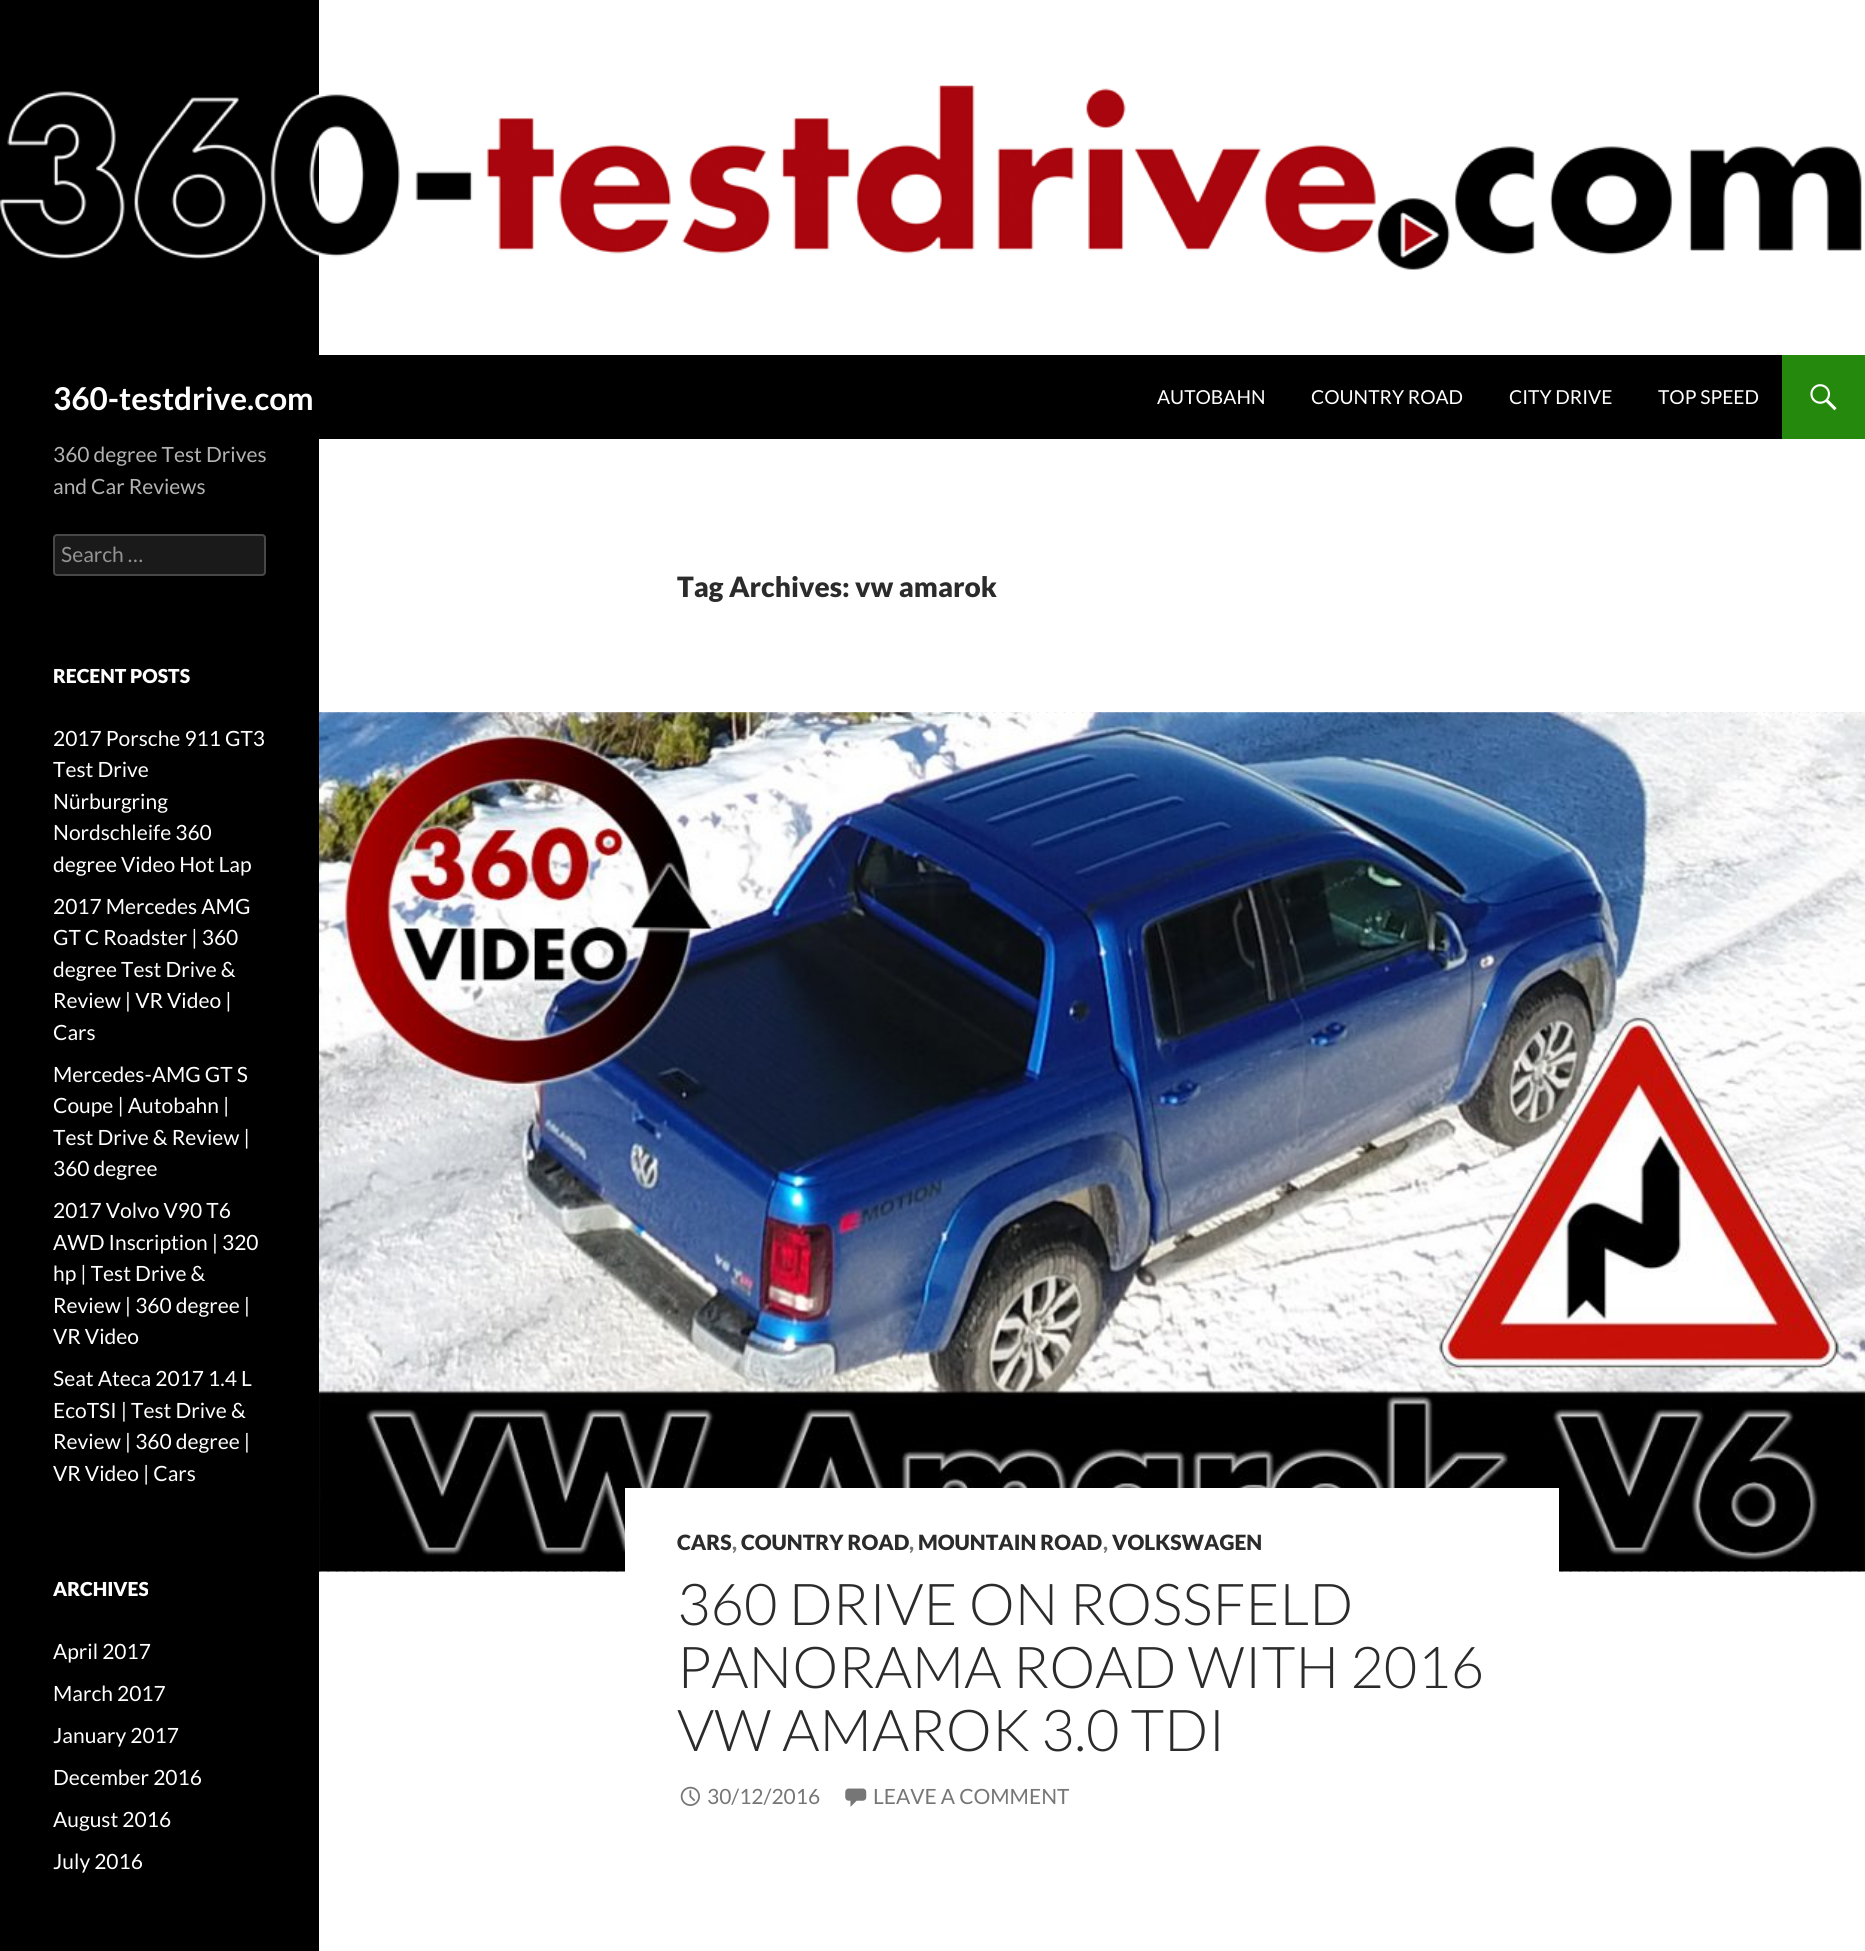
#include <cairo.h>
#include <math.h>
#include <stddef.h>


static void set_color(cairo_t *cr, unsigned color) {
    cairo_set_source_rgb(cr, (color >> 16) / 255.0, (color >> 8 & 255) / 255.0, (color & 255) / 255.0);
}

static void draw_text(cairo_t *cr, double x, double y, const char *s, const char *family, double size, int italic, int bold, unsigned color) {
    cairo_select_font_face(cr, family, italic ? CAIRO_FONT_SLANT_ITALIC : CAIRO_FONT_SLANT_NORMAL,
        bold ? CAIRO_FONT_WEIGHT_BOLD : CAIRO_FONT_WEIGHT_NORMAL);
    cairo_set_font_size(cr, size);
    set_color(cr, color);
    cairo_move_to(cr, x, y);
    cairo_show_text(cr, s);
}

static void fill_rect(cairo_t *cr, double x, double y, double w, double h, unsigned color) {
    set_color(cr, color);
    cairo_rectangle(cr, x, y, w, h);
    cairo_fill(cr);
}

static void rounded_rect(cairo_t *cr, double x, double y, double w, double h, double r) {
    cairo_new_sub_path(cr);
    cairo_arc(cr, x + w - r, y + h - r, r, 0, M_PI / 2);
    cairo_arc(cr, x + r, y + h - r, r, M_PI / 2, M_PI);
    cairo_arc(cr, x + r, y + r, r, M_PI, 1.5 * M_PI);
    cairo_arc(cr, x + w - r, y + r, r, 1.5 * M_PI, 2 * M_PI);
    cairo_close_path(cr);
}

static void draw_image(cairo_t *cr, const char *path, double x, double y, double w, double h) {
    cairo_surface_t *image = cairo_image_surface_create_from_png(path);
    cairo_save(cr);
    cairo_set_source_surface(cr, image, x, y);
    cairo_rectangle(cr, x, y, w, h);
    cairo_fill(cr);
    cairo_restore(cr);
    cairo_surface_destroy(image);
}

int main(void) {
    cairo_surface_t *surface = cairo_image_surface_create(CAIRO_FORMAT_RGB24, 1865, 1951);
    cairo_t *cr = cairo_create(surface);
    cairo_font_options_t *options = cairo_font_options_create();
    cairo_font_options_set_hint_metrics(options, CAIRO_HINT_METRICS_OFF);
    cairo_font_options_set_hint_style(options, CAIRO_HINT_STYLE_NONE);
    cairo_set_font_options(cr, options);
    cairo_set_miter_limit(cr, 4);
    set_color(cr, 0xFFFFFF);
    cairo_paint(cr);
    fill_rect(cr, 0, 0, 319, 1951, 0x000000);
    draw_image(cr, "assets/img1.png", 0, 85, 1862, 185);
    fill_rect(cr, 319, 355, 1463, 84, 0x000000);
    draw_text(cr, 53, 410, "360-testdrive.com", "Lato", 31.5, 0, 1, 0xFFFFFF);
    draw_text(cr, 1157, 404, "AUTOBAHN", "Lato", 19.25, 0, 0, 0xFFFFFF);
    draw_text(cr, 1311, 404, "COUNTRY ROAD", "Lato", 19.25, 0, 0, 0xFFFFFF);
    draw_text(cr, 1509, 404, "CITY DRIVE", "Lato", 19.25, 0, 0, 0xFFFFFF);
    draw_text(cr, 1658, 404, "TOP SPEED", "Lato", 19.25, 0, 0, 0xFFFFFF);
    fill_rect(cr, 1782, 355, 83, 84, 0x24890D);
    draw_image(cr, "assets/img2.png", 1810, 384, 27, 27);
    draw_text(cr, 53, 462, "360 degree Test Drives", "Lato", 21, 0, 0, 0xB3B3B3);
    draw_text(cr, 53, 494, "and Car Reviews", "Lato", 21, 0, 0, 0xB3B3B3);
    set_color(cr, 0x1A1A1A);
    rounded_rect(cr, 53, 534, 213, 42, 4);
    cairo_fill(cr);
    rounded_rect(cr, 54, 535, 211, 40, 3);
    cairo_set_source_rgba(cr, 1, 1, 1, 0.2);
    cairo_stroke(cr);
    draw_text(cr, 61, 562, "Search …", "Lato", 21, 0, 0, 0x939393);
    draw_text(cr, 53, 683, "RECENT POSTS", "Lato Black", 19.25, 0, 0, 0xFFFFFF);
    draw_text(cr, 53, 746, "2017 Porsche 911 GT3", "Lato", 21, 0, 0, 0xFFFFFF);
    draw_text(cr, 53, 777, "Test Drive", "Lato", 21, 0, 0, 0xFFFFFF);
    draw_text(cr, 53, 809, "Nürburgring", "Lato", 21, 0, 0, 0xFFFFFF);
    draw_text(cr, 53, 840, "Nordschleife 360", "Lato", 21, 0, 0, 0xFFFFFF);
    draw_text(cr, 53, 872, "degree Video Hot Lap", "Lato", 21, 0, 0, 0xFFFFFF);
    draw_text(cr, 53, 914, "2017 Mercedes AMG", "Lato", 21, 0, 0, 0xFFFFFF);
    draw_text(cr, 53, 945, "GT C Roadster | 360", "Lato", 21, 0, 0, 0xFFFFFF);
    draw_text(cr, 53, 977, "degree Test Drive &", "Lato", 21, 0, 0, 0xFFFFFF);
    draw_text(cr, 53, 1008, "Review | VR Video |", "Lato", 21, 0, 0, 0xFFFFFF);
    draw_text(cr, 53, 1040, "Cars", "Lato", 21, 0, 0, 0xFFFFFF);
    draw_text(cr, 53, 1082, "Mercedes-AMG GT S", "Lato", 21, 0, 0, 0xFFFFFF);
    draw_text(cr, 53, 1113, "Coupe | Autobahn |", "Lato", 21, 0, 0, 0xFFFFFF);
    draw_text(cr, 53, 1145, "Test Drive & Review |", "Lato", 21, 0, 0, 0xFFFFFF);
    draw_text(cr, 53, 1176, "360 degree", "Lato", 21, 0, 0, 0xFFFFFF);
    draw_text(cr, 53, 1218, "2017 Volvo V90 T6", "Lato", 21, 0, 0, 0xFFFFFF);
    draw_text(cr, 53, 1250, "AWD Inscription | 320", "Lato", 21, 0, 0, 0xFFFFFF);
    draw_text(cr, 53, 1281, "hp | Test Drive &", "Lato", 21, 0, 0, 0xFFFFFF);
    draw_text(cr, 53, 1313, "Review | 360 degree |", "Lato", 21, 0, 0, 0xFFFFFF);
    draw_text(cr, 53, 1344, "VR Video", "Lato", 21, 0, 0, 0xFFFFFF);
    draw_text(cr, 53, 1386, "Seat Ateca 2017 1.4 L", "Lato", 21, 0, 0, 0xFFFFFF);
    draw_text(cr, 53, 1418, "EcoTSI | Test Drive &", "Lato", 21, 0, 0, 0xFFFFFF);
    draw_text(cr, 53, 1449, "Review | 360 degree |", "Lato", 21, 0, 0, 0xFFFFFF);
    draw_text(cr, 53, 1481, "VR Video | Cars", "Lato", 21, 0, 0, 0xFFFFFF);
    draw_text(cr, 53, 1596, "ARCHIVES", "Lato Black", 19.25, 0, 0, 0xFFFFFF);
    draw_text(cr, 53, 1659, "April 2017", "Lato", 21, 0, 0, 0xFFFFFF);
    draw_text(cr, 53, 1701, "March 2017", "Lato", 21, 0, 0, 0xFFFFFF);
    draw_text(cr, 53, 1743, "January 2017", "Lato", 21, 0, 0, 0xFFFFFF);
    draw_text(cr, 53, 1785, "December 2016", "Lato", 21, 0, 0, 0xFFFFFF);
    draw_text(cr, 53, 1827, "August 2016", "Lato", 21, 0, 0, 0xFFFFFF);
    draw_text(cr, 53, 1869, "July 2016", "Lato", 21, 0, 0, 0xFFFFFF);
    draw_text(cr, 677, 597, "Tag Archives: vw amarok", "Lato Black", 28, 0, 0, 0x2B2B2B);
    fill_rect(cr, 319, 712, 1543, 860, 0xB2B2B2);
    draw_image(cr, "assets/img3.png", 319, 712, 1546, 860);
    draw_image(cr, "assets/img4.png", 319, 712, 1546, 860);
    fill_rect(cr, 625, 1488, 934, 84, 0xFFFFFF);
    draw_text(cr, 677, 1550, "CARS", "Lato Black", 21, 0, 0, 0x2B2B2B);
    draw_text(cr, 732, 1550, ",", "Lato Black", 21, 0, 0, 0x767676);
    draw_text(cr, 741, 1550, "COUNTRY ROAD", "Lato Black", 21, 0, 0, 0x2B2B2B);
    draw_text(cr, 909, 1550, ",", "Lato Black", 21, 0, 0, 0x767676);
    draw_text(cr, 918, 1550, "MOUNTAIN ROAD", "Lato Black", 21, 0, 0, 0x2B2B2B);
    draw_text(cr, 1103, 1550, ",", "Lato Black", 21, 0, 0, 0x767676);
    draw_text(cr, 1112, 1550, "VOLKSWAGEN", "Lato Black", 21, 0, 0, 0x2B2B2B);
    draw_text(cr, 677, 1625, "360 DRIVE ON ROSSFELD", "Lato Light", 57.75, 0, 0, 0x2B2B2B);
    draw_text(cr, 677, 1688, "PANORAMA ROAD WITH 2016", "Lato Light", 57.75, 0, 0, 0x2B2B2B);
    draw_text(cr, 677, 1751, "VW AMAROK 3.0 TDI", "Lato Light", 57.75, 0, 0, 0x2B2B2B);
    draw_image(cr, "assets/img5.png", 680, 1786, 20, 20);
    draw_text(cr, 707, 1804, "30/12/2016", "Lato", 21, 0, 0, 0x767676);
    draw_image(cr, "assets/img6.png", 845, 1788, 22, 19);
    draw_text(cr, 873, 1804, "LEAVE A COMMENT", "Lato", 21, 0, 0, 0x767676);
    cairo_surface_write_to_png(surface, "output.png");
    cairo_font_options_destroy(options);
    cairo_destroy(cr);
    cairo_surface_destroy(surface);
    return 0;
}
